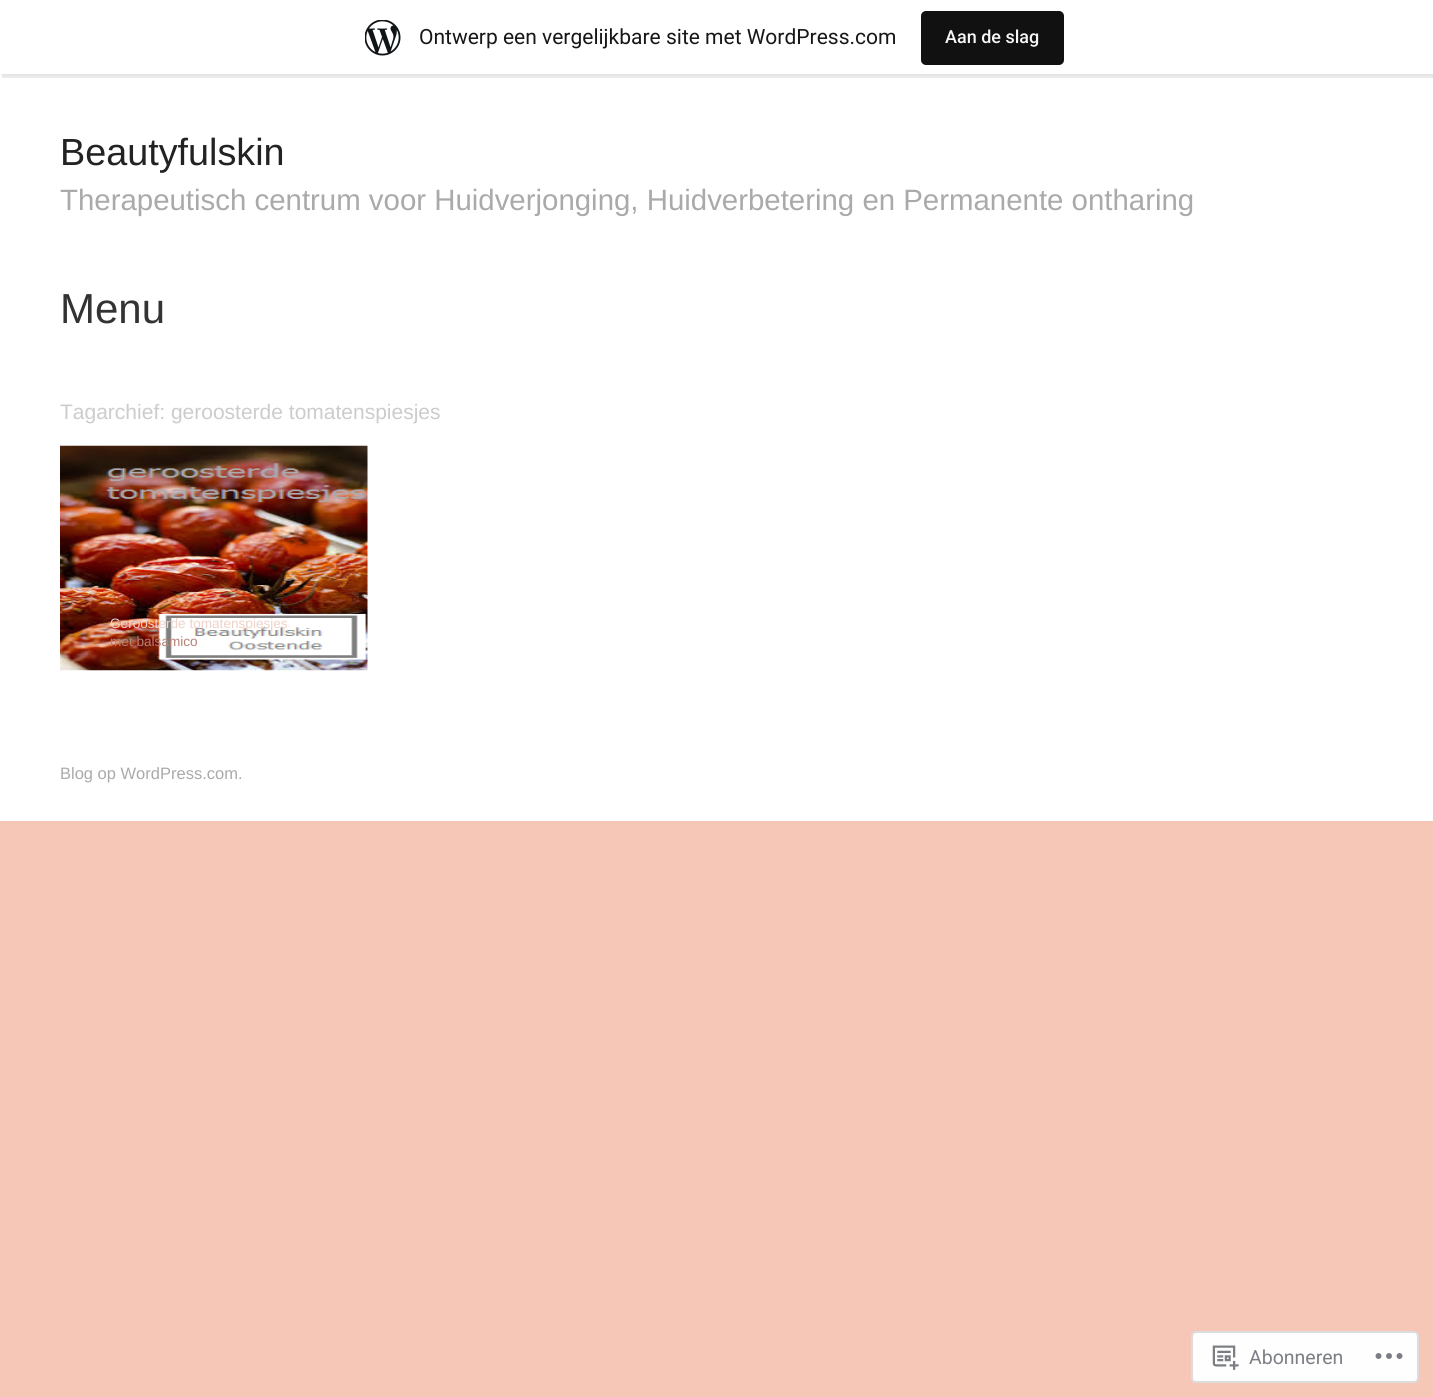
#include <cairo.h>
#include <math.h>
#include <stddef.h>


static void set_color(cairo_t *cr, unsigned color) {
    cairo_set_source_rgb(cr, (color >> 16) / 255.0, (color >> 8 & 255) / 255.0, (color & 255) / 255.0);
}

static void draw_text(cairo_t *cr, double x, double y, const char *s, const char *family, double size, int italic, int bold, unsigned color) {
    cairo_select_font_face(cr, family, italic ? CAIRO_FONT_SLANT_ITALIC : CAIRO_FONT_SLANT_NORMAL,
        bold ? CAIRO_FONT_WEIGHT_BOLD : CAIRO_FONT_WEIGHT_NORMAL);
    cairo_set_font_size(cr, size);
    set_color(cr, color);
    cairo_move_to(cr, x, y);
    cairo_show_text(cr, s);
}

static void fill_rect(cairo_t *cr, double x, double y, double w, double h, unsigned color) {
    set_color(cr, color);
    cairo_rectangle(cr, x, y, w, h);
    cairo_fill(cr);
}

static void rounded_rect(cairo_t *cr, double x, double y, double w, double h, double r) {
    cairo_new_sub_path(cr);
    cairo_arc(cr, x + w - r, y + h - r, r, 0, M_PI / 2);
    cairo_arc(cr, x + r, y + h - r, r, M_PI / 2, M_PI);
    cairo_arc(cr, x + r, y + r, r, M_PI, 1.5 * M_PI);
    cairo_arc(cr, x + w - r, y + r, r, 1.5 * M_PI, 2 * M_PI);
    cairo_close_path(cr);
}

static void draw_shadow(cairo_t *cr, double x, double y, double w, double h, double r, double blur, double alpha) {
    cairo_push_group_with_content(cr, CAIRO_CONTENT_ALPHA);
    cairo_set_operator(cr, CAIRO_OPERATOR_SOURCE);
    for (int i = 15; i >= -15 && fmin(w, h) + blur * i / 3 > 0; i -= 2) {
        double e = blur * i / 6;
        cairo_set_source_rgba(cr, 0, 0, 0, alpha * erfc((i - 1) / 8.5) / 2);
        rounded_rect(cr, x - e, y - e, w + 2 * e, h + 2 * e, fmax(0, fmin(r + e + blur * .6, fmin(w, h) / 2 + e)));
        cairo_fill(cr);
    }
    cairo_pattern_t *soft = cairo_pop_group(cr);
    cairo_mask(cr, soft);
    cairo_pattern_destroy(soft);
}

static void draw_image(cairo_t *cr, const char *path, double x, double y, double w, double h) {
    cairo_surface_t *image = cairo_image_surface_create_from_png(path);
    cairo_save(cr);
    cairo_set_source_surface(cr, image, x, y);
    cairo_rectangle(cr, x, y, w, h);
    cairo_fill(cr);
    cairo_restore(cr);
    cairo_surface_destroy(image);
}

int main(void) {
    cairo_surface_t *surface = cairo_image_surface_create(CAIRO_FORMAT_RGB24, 1433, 1397);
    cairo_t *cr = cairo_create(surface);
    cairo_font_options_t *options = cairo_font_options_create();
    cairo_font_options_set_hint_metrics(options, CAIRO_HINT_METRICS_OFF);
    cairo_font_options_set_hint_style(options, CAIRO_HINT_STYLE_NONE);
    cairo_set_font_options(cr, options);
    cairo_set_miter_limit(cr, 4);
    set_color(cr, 0xF6C7B7);
    cairo_paint(cr);
    fill_rect(cr, 0, 74, 1433, 747, 0xFFFFFF);
    set_color(cr, 0x000000);
    draw_shadow(cr, 0, 2, 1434, 73, 0, 1.5, 0.05);
    cairo_set_source_rgba(cr, 0, 0, 0, 0.08);
    cairo_new_path(cr);
    cairo_move_to(cr, 2, 74);
    cairo_line_to(cr, 2, 78);
    cairo_line_to(cr, 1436, 78);
    cairo_line_to(cr, 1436, 5);
    cairo_line_to(cr, 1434, 5);
    cairo_line_to(cr, 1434, 74);
    cairo_close_path(cr);
    cairo_fill(cr);
    fill_rect(cr, 0, 0, 1433, 74, 0xFFFFFF);
    draw_image(cr, "assets/img1.png", 365, 20, 36, 36);
    draw_text(cr, 419, 44, "Ontwerp een vergelijkbare site met WordPress.com", "Roboto", 21, 0, 0, 0x171717);
    set_color(cr, 0x111111);
    rounded_rect(cr, 921, 11, 143, 54, 5);
    cairo_fill(cr);
    draw_text(cr, 945, 43, "Aan de slag", "Roboto Medium", 18, 0, 0, 0xF6F7F7);
    draw_text(cr, 60, 165, "Beautyfulskin", "Arimo", 37.75, 0, 0, 0x222222);
    draw_text(cr, 60, 210, "Therapeutisch centrum voor Huidverjonging, Huidverbetering en Permanente ontharing", "Arimo", 29.4, 0, 0, 0xAAAAAA);
    draw_text(cr, 60, 323, "Menu", "Arimo", 42, 0, 0, 0x333333);
    draw_text(cr, 60, 419, "Tagarchief: geroosterde tomatenspiesjes", "Arimo", 21, 0, 0, 0xCCCCCC);
    draw_image(cr, "assets/img2.png", 60, 445, 308, 226);
    draw_text(cr, 110, 628, "Geroosterde tomatenspiesjes", "Arimo", 13.6, 0, 0, 0xEED2C9);
    draw_text(cr, 110, 646, "met balsamico", "Arimo", 13.6, 0, 0, 0xB48175);
    draw_text(cr, 60, 779, "Blog op WordPress.com.", "Liberation Sans", 16.5, 0, 0, 0xAAAAAA);
    set_color(cr, 0xFFFEFE);
    rounded_rect(cr, 1192, 1332, 226, 50, 4);
    cairo_fill_preserve(cr);
    set_color(cr, 0xDDDCDD);
    cairo_stroke(cr);
    draw_image(cr, "assets/img3.png", 1212, 1345, 27, 25);
    draw_text(cr, 1249, 1364, "Abonneren", "Roboto", 19.5, 0, 0, 0x7B7E83);
    draw_image(cr, "assets/img4.png", 1375, 1353, 28, 6);
    cairo_surface_write_to_png(surface, "output.png");
    cairo_font_options_destroy(options);
    cairo_destroy(cr);
    cairo_surface_destroy(surface);
    return 0;
}
